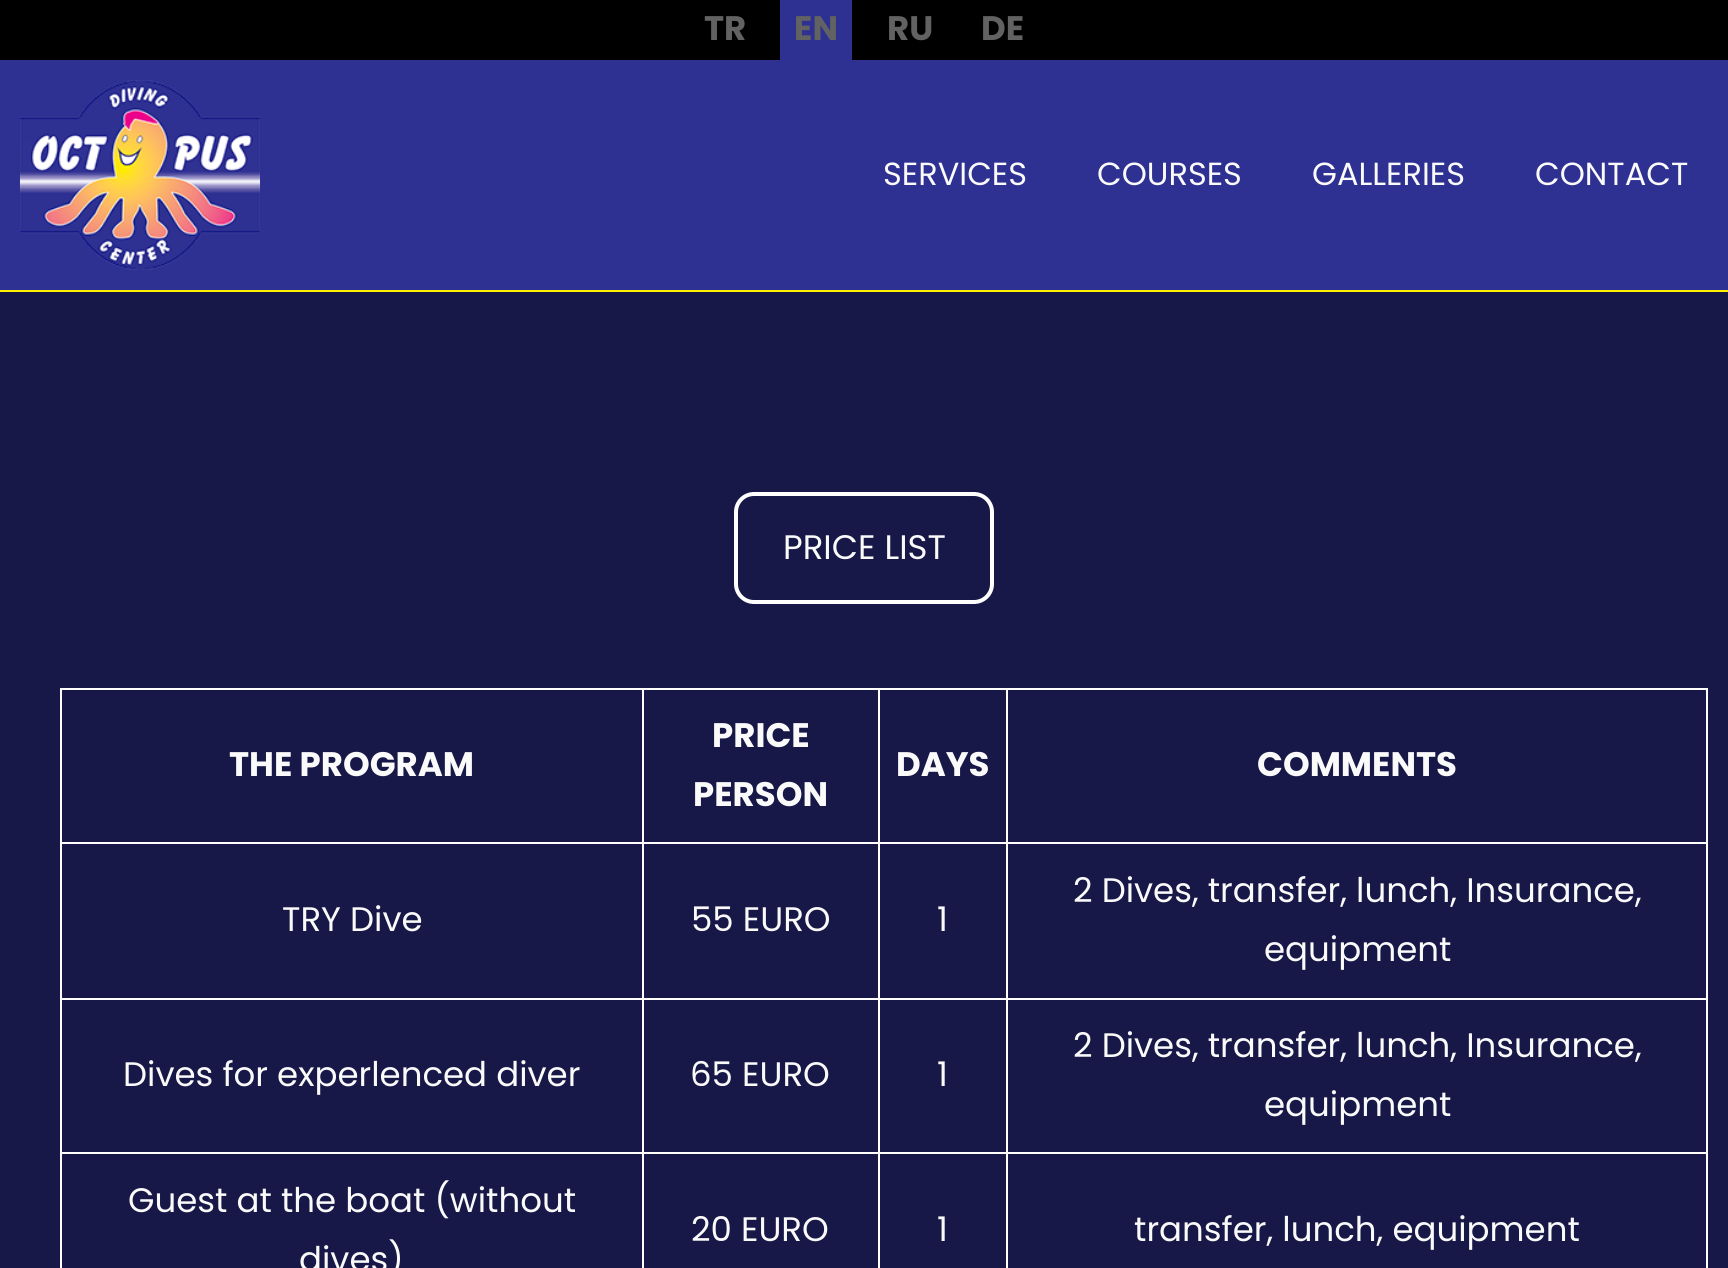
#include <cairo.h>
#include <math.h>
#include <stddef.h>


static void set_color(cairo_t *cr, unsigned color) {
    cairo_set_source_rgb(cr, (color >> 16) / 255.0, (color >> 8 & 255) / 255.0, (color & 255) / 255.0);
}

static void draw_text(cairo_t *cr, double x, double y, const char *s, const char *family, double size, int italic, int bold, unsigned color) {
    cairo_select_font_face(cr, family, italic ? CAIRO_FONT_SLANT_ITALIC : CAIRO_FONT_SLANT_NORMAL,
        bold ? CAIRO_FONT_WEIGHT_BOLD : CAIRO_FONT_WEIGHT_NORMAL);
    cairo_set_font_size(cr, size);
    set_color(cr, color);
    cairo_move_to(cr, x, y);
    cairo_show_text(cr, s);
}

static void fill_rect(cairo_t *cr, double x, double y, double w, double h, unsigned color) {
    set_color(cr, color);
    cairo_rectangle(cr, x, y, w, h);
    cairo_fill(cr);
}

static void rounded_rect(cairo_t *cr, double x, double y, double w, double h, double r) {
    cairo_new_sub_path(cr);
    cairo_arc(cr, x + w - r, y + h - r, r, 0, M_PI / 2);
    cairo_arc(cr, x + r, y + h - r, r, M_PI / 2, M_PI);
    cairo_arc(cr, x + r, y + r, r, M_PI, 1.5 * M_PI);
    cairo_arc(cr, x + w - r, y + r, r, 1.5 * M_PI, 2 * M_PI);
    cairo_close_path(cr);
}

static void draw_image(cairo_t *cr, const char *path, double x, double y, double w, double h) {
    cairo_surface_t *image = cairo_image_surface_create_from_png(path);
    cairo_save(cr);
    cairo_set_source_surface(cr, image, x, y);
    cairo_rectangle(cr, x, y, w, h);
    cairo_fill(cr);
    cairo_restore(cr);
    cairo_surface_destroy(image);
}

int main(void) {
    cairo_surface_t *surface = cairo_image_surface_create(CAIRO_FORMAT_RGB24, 1728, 1268);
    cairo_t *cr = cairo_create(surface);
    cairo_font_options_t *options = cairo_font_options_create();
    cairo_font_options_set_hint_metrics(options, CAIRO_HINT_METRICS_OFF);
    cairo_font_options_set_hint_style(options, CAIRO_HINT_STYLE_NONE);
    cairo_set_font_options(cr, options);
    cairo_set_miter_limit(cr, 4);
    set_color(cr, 0x2E3192);
    cairo_paint(cr);
    fill_rect(cr, 0, 0, 1728, 60, 0x000000);
    draw_text(cr, 704, 40, "TR", "Poppins", 34, 0, 1, 0x626262);
    fill_rect(cr, 780, 0, 72, 60, 0x2E3192);
    draw_text(cr, 794, 40, "EN", "Poppins", 34, 0, 1, 0x626262);
    draw_text(cr, 887, 40, "RU", "Poppins", 34, 0, 1, 0x626262);
    draw_text(cr, 981, 40, "DE", "Poppins", 34, 0, 1, 0x626262);
    fill_rect(cr, 0, 290, 1728, 2, 0xFFF100);
    draw_image(cr, "assets/img1.png", 20, 80, 240, 190);
    draw_text(cr, 883, 185, "SERVICES", "Poppins", 32, 0, 0, 0xFAFAFA);
    draw_text(cr, 1097, 185, "COURSES", "Poppins", 32, 0, 0, 0xFAFAFA);
    draw_text(cr, 1312, 185, "GALLERIES", "Poppins", 32, 0, 0, 0xFAFAFA);
    draw_text(cr, 1535, 185, "CONTACT", "Poppins", 32, 0, 0, 0xFAFAFA);
    fill_rect(cr, 0, 292, 1728, 976, 0x181848);
    rounded_rect(cr, 736, 494, 256, 108, 18);
    set_color(cr, 0xFFFFFF);
    cairo_set_line_width(cr, 4);
    cairo_stroke(cr);
    draw_text(cr, 783, 559, "PRICE LIST", "Poppins", 34, 0, 0, 0xFAFAFA);
    fill_rect(cr, 1006, 688, 702, 2, 0xFFFFFF);
    fill_rect(cr, 1006, 842, 702, 2, 0xFFFFFF);
    fill_rect(cr, 1006, 998, 702, 2, 0xFFFFFF);
    fill_rect(cr, 1006, 1152, 702, 2, 0xFFFFFF);
    fill_rect(cr, 1006, 1152, 2, 116, 0xFFFFFF);
    fill_rect(cr, 878, 1152, 130, 2, 0xFFFFFF);
    fill_rect(cr, 1006, 998, 2, 156, 0xFFFFFF);
    fill_rect(cr, 878, 998, 130, 2, 0xFFFFFF);
    fill_rect(cr, 1006, 842, 2, 158, 0xFFFFFF);
    fill_rect(cr, 878, 842, 130, 2, 0xFFFFFF);
    fill_rect(cr, 1006, 688, 2, 156, 0xFFFFFF);
    fill_rect(cr, 878, 688, 130, 2, 0xFFFFFF);
    fill_rect(cr, 878, 1152, 2, 116, 0xFFFFFF);
    fill_rect(cr, 642, 1152, 238, 2, 0xFFFFFF);
    fill_rect(cr, 878, 998, 2, 156, 0xFFFFFF);
    fill_rect(cr, 642, 998, 238, 2, 0xFFFFFF);
    fill_rect(cr, 878, 842, 2, 158, 0xFFFFFF);
    fill_rect(cr, 642, 842, 238, 2, 0xFFFFFF);
    fill_rect(cr, 878, 688, 2, 156, 0xFFFFFF);
    fill_rect(cr, 642, 688, 238, 2, 0xFFFFFF);
    fill_rect(cr, 642, 1152, 2, 116, 0xFFFFFF);
    fill_rect(cr, 60, 1152, 584, 2, 0xFFFFFF);
    fill_rect(cr, 642, 998, 2, 156, 0xFFFFFF);
    fill_rect(cr, 60, 998, 584, 2, 0xFFFFFF);
    fill_rect(cr, 642, 842, 2, 158, 0xFFFFFF);
    fill_rect(cr, 60, 842, 584, 2, 0xFFFFFF);
    fill_rect(cr, 642, 688, 2, 156, 0xFFFFFF);
    fill_rect(cr, 60, 688, 584, 2, 0xFFFFFF);
    fill_rect(cr, 60, 1152, 2, 116, 0xFFFFFF);
    fill_rect(cr, 60, 998, 2, 156, 0xFFFFFF);
    fill_rect(cr, 60, 842, 2, 158, 0xFFFFFF);
    fill_rect(cr, 60, 688, 2, 156, 0xFFFFFF);
    draw_text(cr, 229, 776, "THE PROGRAM", "Poppins", 34, 0, 1, 0xFAFAFA);
    draw_text(cr, 712, 747, "PRICE", "Poppins", 34, 0, 1, 0xFAFAFA);
    draw_text(cr, 693, 806, "PERSON", "Poppins", 34, 0, 1, 0xFAFAFA);
    draw_text(cr, 896, 776, "DAYS", "Poppins", 34, 0, 1, 0xFAFAFA);
    fill_rect(cr, 1706, 1152, 2, 116, 0xFFFFFF);
    fill_rect(cr, 1706, 998, 2, 156, 0xFFFFFF);
    fill_rect(cr, 1706, 842, 2, 158, 0xFFFFFF);
    fill_rect(cr, 1706, 688, 2, 156, 0xFFFFFF);
    draw_text(cr, 1257, 776, "COMMENTS", "Poppins", 34, 0, 1, 0xFAFAFA);
    draw_text(cr, 282, 931, "TRY Dive", "Poppins", 34, 0, 0, 0xFAFAFA);
    draw_text(cr, 691, 931, "55 EURO", "Poppins", 34, 0, 0, 0xFAFAFA);
    draw_text(cr, 937, 931, "1", "Poppins", 34, 0, 0, 0xFAFAFA);
    draw_text(cr, 1073, 902, "2 Dives, transfer, lunch, Insurance,", "Poppins", 34, 0, 0, 0xFAFAFA);
    draw_text(cr, 1264, 961, "equipment", "Poppins", 34, 0, 0, 0xFAFAFA);
    draw_text(cr, 123, 1086, "Dives for experlenced diver", "Poppins", 34, 0, 0, 0xFAFAFA);
    draw_text(cr, 690, 1086, "65 EURO", "Poppins", 34, 0, 0, 0xFAFAFA);
    draw_text(cr, 937, 1086, "1", "Poppins", 34, 0, 0, 0xFAFAFA);
    draw_text(cr, 1073, 1057, "2 Dives, transfer, lunch, Insurance,", "Poppins", 34, 0, 0, 0xFAFAFA);
    draw_text(cr, 1264, 1116, "equipment", "Poppins", 34, 0, 0, 0xFAFAFA);
    draw_text(cr, 128, 1212, "Guest at the boat (without", "Poppins", 34, 0, 0, 0xFAFAFA);
    draw_text(cr, 299, 1271, "dives)", "Poppins", 34, 0, 0, 0xFAFAFA);
    draw_text(cr, 691, 1241, "20 EURO", "Poppins", 34, 0, 0, 0xFAFAFA);
    draw_text(cr, 937, 1241, "1", "Poppins", 34, 0, 0, 0xFAFAFA);
    draw_text(cr, 1134, 1241, "transfer, lunch, equipment", "Poppins", 34, 0, 0, 0xFAFAFA);
    cairo_surface_write_to_png(surface, "output.png");
    cairo_font_options_destroy(options);
    cairo_destroy(cr);
    cairo_surface_destroy(surface);
    return 0;
}
